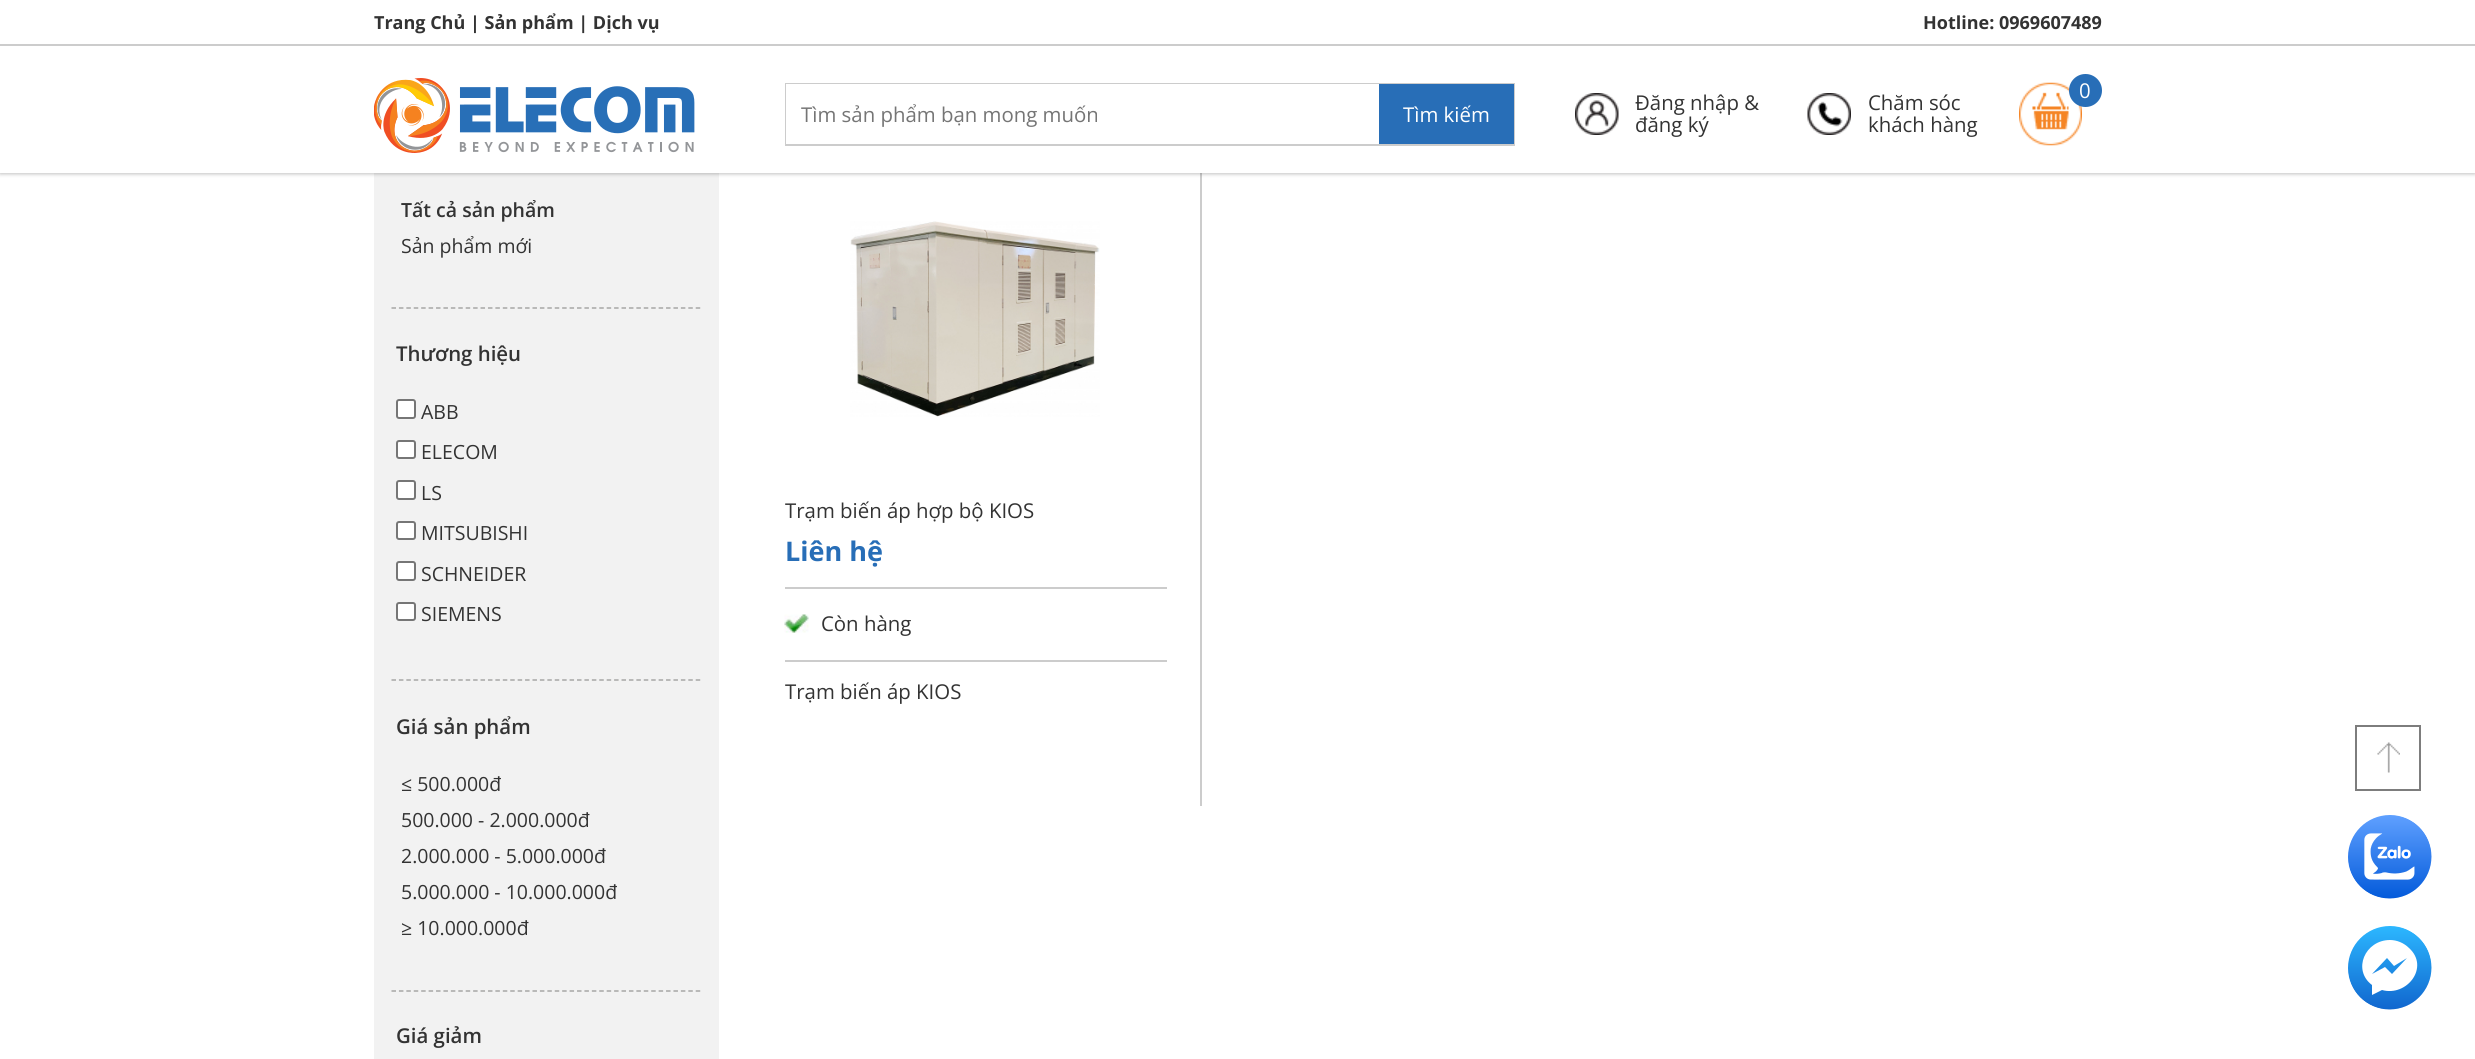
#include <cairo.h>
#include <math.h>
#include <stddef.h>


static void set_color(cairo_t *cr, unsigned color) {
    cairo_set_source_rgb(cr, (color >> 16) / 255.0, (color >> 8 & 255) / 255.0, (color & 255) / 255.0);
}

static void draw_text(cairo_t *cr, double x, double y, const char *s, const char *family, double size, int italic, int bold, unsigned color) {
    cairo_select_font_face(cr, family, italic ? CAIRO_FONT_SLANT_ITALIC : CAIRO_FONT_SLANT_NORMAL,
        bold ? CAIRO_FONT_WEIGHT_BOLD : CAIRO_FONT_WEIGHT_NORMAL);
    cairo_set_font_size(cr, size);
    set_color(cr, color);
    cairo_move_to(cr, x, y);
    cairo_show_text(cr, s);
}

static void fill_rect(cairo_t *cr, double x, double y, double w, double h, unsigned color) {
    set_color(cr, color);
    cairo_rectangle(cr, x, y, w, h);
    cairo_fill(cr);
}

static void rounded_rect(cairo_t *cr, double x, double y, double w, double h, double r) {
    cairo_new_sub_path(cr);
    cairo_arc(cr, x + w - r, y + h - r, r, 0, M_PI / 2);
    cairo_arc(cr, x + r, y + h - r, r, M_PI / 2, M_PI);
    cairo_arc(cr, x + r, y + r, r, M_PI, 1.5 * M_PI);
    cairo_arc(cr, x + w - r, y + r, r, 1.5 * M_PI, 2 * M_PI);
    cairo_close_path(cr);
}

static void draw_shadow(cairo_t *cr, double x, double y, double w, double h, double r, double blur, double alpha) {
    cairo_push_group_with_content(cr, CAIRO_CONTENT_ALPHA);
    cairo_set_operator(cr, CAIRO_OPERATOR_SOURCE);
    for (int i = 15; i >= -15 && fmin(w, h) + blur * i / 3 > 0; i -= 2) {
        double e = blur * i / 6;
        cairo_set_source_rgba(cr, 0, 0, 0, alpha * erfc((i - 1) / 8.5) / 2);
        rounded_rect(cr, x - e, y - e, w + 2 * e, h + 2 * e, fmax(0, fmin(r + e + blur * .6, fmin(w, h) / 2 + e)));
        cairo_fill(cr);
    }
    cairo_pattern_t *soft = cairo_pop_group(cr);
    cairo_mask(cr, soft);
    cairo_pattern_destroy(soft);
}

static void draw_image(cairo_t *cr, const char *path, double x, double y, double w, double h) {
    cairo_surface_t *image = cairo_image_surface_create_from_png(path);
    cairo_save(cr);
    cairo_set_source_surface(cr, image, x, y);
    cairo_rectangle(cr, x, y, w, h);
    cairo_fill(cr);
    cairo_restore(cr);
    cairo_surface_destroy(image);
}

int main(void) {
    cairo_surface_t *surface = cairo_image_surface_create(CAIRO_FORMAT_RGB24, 2475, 1059);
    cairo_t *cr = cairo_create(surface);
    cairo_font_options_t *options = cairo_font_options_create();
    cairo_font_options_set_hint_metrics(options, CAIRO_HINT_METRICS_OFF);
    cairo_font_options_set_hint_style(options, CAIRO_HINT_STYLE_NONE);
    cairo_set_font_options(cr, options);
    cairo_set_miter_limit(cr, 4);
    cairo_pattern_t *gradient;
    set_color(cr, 0xFFFFFF);
    cairo_paint(cr);
    fill_rect(cr, 374, 173, 345, 886, 0xF2F2F2);
    fill_rect(cr, 1200, 173, 2, 633, 0xCCCCCC);
    set_color(cr, 0x000000);
    draw_shadow(cr, 0, 2, 2475, 172, 0, 2, 0.25);
    fill_rect(cr, 0, 0, 2475, 173, 0xFFFFFF);
    fill_rect(cr, 0, 44, 2475, 2, 0xCCCCCC);
    draw_text(cr, 374, 29, "Trang Chủ | Sản phẩm | Dịch vụ", "Open Sans", 18, 0, 1, 0x333333);
    draw_text(cr, 1923, 29, "Hotline: 0969607489", "Open Sans", 18, 0, 1, 0x333333);
    draw_image(cr, "assets/img1.png", 374, 78, 321, 75);
    draw_image(cr, "assets/img2.png", 2019, 82, 63, 64);
    set_color(cr, 0x286EB7);
    cairo_arc(cr, 2085.5, 90.5, 16.5, 0, 2 * M_PI);
    cairo_fill(cr);
    draw_text(cr, 2079, 98, "0", "Open Sans", 20.4, 0, 0, 0xFFFFFF);
    cairo_rectangle(cr, 786, 84, 728, 61);
    set_color(cr, 0xCCCCCC);
    cairo_stroke(cr);
    fill_rect(cr, 786, 84, 593, 60, 0xFFFFFF);
    draw_text(cr, 801, 122, "Tìm sản phẩm bạn mong muốn", "Open Sans", 20.4, 0, 0, 0x757575);
    fill_rect(cr, 1379, 84, 135, 60, 0x286EB7);
    draw_text(cr, 1403, 122, "Tìm kiếm", "Open Sans", 20.4, 0, 0, 0xFFFFFF);
    draw_image(cr, "assets/img3.png", 1575, 93, 44, 42);
    draw_text(cr, 1635, 110, "Đăng nhập &", "Open Sans", 20.4, 0, 0, 0x333333);
    draw_text(cr, 1635, 132, "đăng ký", "Open Sans", 20.4, 0, 0, 0x333333);
    draw_image(cr, "assets/img4.png", 1807, 93, 44, 42);
    draw_text(cr, 1868, 110, "Chăm sóc", "Open Sans", 20.4, 0, 0, 0x333333);
    draw_text(cr, 1868, 132, "khách hàng", "Open Sans", 20.4, 0, 0, 0x333333);
    cairo_new_path(cr);
    cairo_move_to(cr, 391.5, 308);
    cairo_line_to(cr, 700.5, 308);
    set_color(cr, 0xA6A6A5);
    cairo_set_line_width(cr, 1.5);
    cairo_set_dash(cr, (double[]){4.5, 2.92}, 2, 0);
    cairo_stroke(cr);
    draw_text(cr, 401, 217, "Tất cả sản phẩm", "Open Sans SemiBold", 19.5, 0, 0, 0x333333);
    draw_text(cr, 401, 253, "Sản phẩm mới", "Open Sans", 19.5, 0, 0, 0x333333);
    cairo_new_path(cr);
    cairo_move_to(cr, 391.5, 680);
    cairo_line_to(cr, 700.5, 680);
    set_color(cr, 0xA6A6A5);
    cairo_stroke(cr);
    draw_text(cr, 396, 361, "Thương hiệu", "Open Sans SemiBold", 20.4, 0, 0, 0x333333);
    set_color(cr, 0xFFFFFF);
    rounded_rect(cr, 397, 400, 18, 18, 2);
    cairo_fill_preserve(cr);
    set_color(cr, 0x767676);
    cairo_set_line_width(cr, 2);
    cairo_set_dash(cr, NULL, 0, 0);
    cairo_stroke(cr);
    draw_text(cr, 421, 419, "ABB", "Open Sans", 19.5, 0, 0, 0x333333);
    set_color(cr, 0xFFFFFF);
    rounded_rect(cr, 397, 441, 18, 17, 2);
    cairo_fill_preserve(cr);
    set_color(cr, 0x767676);
    cairo_stroke(cr);
    draw_text(cr, 421, 459, "ELECOM", "Open Sans", 19.5, 0, 0, 0x333333);
    set_color(cr, 0xFFFFFF);
    rounded_rect(cr, 397, 481, 18, 18, 2);
    cairo_fill_preserve(cr);
    set_color(cr, 0x767676);
    cairo_stroke(cr);
    draw_text(cr, 421, 500, "LS", "Open Sans", 19.5, 0, 0, 0x333333);
    set_color(cr, 0xFFFFFF);
    rounded_rect(cr, 397, 522, 18, 17, 2);
    cairo_fill_preserve(cr);
    set_color(cr, 0x767676);
    cairo_stroke(cr);
    draw_text(cr, 421, 540, "MITSUBISHI", "Open Sans", 19.5, 0, 0, 0x333333);
    set_color(cr, 0xFFFFFF);
    rounded_rect(cr, 397, 562, 18, 18, 2);
    cairo_fill_preserve(cr);
    set_color(cr, 0x767676);
    cairo_stroke(cr);
    draw_text(cr, 421, 581, "SCHNEIDER", "Open Sans", 19.5, 0, 0, 0x333333);
    set_color(cr, 0xFFFFFF);
    rounded_rect(cr, 397, 603, 18, 17, 2);
    cairo_fill_preserve(cr);
    set_color(cr, 0x767676);
    cairo_stroke(cr);
    draw_text(cr, 421, 621, "SIEMENS", "Open Sans", 19.5, 0, 0, 0x333333);
    cairo_new_path(cr);
    cairo_move_to(cr, 391.5, 991);
    cairo_line_to(cr, 700.5, 991);
    set_color(cr, 0xA6A6A5);
    cairo_set_line_width(cr, 1.5);
    cairo_set_dash(cr, (double[]){4.5, 2.92}, 2, 0);
    cairo_stroke(cr);
    draw_text(cr, 396, 734, "Giá sản phẩm", "Open Sans SemiBold", 20.4, 0, 0, 0x333333);
    draw_text(cr, 401, 791, "≤ 500.000đ", "Open Sans", 19.5, 0, 0, 0x333333);
    draw_text(cr, 401, 827, "500.000 - 2.000.000đ", "Open Sans", 19.5, 0, 0, 0x333333);
    draw_text(cr, 401, 863, "2.000.000 - 5.000.000đ", "Open Sans", 19.5, 0, 0, 0x333333);
    draw_text(cr, 401, 899, "5.000.000 - 10.000.000đ", "Open Sans", 19.5, 0, 0, 0x333333);
    draw_text(cr, 401, 935, "≥ 10.000.000đ", "Open Sans", 19.5, 0, 0, 0x333333);
    draw_text(cr, 396, 1043, "Giá giảm", "Open Sans SemiBold", 20.4, 0, 0, 0x333333);
    draw_image(cr, "assets/img5.png", 850, 221, 250, 196);
    draw_text(cr, 785, 518, "Trạm biến áp hợp bộ KIOS", "Open Sans", 20.4, 0, 0, 0x333333);
    draw_text(cr, 785, 561, "Liên hệ", "Open Sans", 27, 0, 1, 0x286EB7);
    fill_rect(cr, 785, 587, 382, 2, 0xCCCCCC);
    fill_rect(cr, 785, 660, 382, 2, 0xCCCCCC);
    draw_image(cr, "assets/img6.png", 784, 614, 25, 19);
    draw_text(cr, 821, 631, "Còn hàng", "Open Sans", 20.4, 0, 0, 0x333333);
    draw_text(cr, 785, 699, "Trạm biến áp KIOS", "Open Sans", 20.4, 0, 0, 0x333333);
    draw_image(cr, "assets/img7.png", 2377, 742, 23, 31);
    cairo_rectangle(cr, 2356, 726, 64, 64);
    set_color(cr, 0x7D7D7D);
    cairo_set_line_width(cr, 2);
    cairo_set_dash(cr, NULL, 0, 0);
    cairo_stroke(cr);
    draw_image(cr, "assets/img8.png", 2348, 815, 84, 84);
    cairo_arc(cr, 2390, 857, 43.5, 0, 2 * M_PI);
    set_color(cr, 0xFFFFFF);
    cairo_set_line_width(cr, 3);
    cairo_stroke(cr);
    gradient = cairo_pattern_create_linear(2389, 1008, 2389, 926);
    cairo_pattern_add_color_stop_rgba(gradient, 0, 0.067, 0.408, 0.812, 1);
    cairo_pattern_add_color_stop_rgba(gradient, 1, 0.173, 0.718, 1, 1);
    cairo_set_source(cr, gradient);
    cairo_pattern_destroy(gradient);
    cairo_arc(cr, 2389.5, 967.5, 42, 0, 2 * M_PI);
    cairo_fill(cr);
    set_color(cr, 0xFFFFFF);
    cairo_set_fill_rule(cr, CAIRO_FILL_RULE_EVEN_ODD);
    cairo_new_path(cr);
    cairo_move_to(cr, 2390, 940);
    cairo_curve_to(cr, 2365, 940, 2352, 970, 2372, 985);
    cairo_line_to(cr, 2372, 995);
    cairo_line_to(cr, 2382, 990);
    cairo_curve_to(cr, 2407, 997, 2430, 967, 2409, 948);
    cairo_curve_to(cr, 2404, 943, 2397, 940, 2390, 940);
    cairo_close_path(cr);
    cairo_move_to(cr, 2392, 974);
    cairo_line_to(cr, 2385, 967);
    cairo_line_to(cr, 2372, 974);
    cairo_line_to(cr, 2387, 958);
    cairo_line_to(cr, 2394, 966);
    cairo_line_to(cr, 2407, 958);
    cairo_close_path(cr);
    cairo_fill(cr);
    cairo_arc(cr, 2390, 968, 43.5, 0, 2 * M_PI);
    cairo_stroke(cr);
    cairo_surface_write_to_png(surface, "output.png");
    cairo_font_options_destroy(options);
    cairo_destroy(cr);
    cairo_surface_destroy(surface);
    return 0;
}
